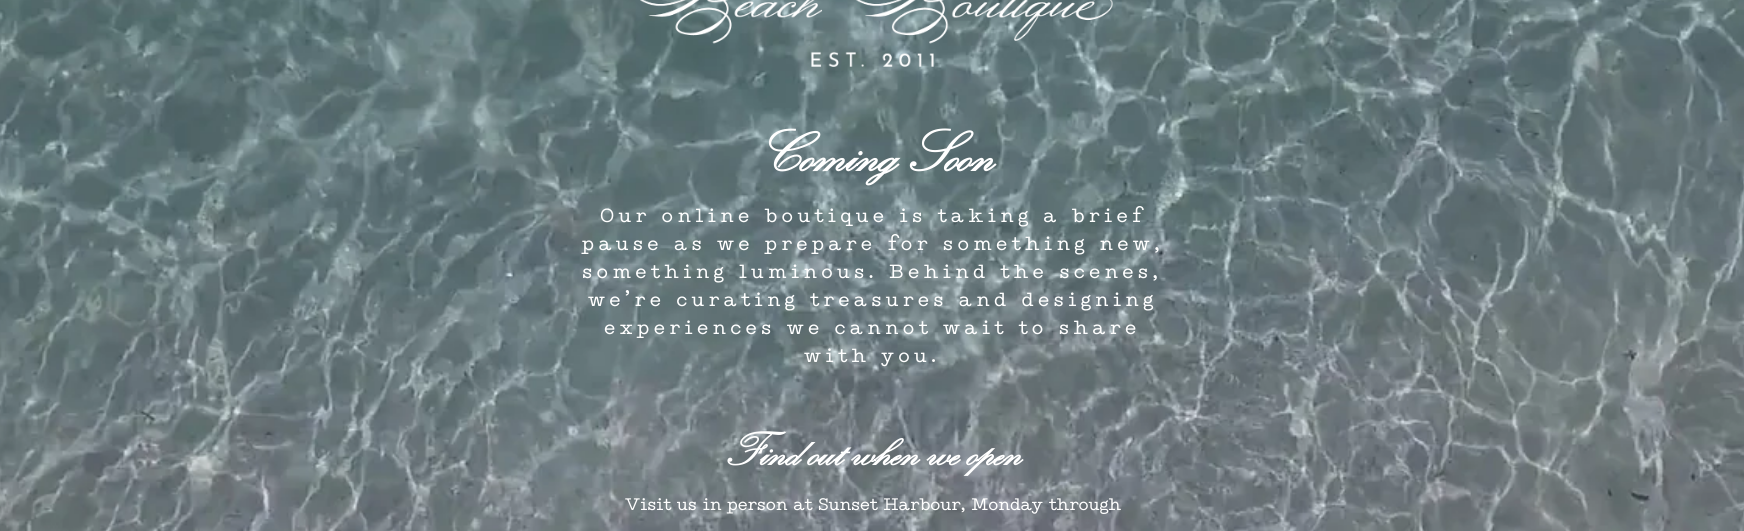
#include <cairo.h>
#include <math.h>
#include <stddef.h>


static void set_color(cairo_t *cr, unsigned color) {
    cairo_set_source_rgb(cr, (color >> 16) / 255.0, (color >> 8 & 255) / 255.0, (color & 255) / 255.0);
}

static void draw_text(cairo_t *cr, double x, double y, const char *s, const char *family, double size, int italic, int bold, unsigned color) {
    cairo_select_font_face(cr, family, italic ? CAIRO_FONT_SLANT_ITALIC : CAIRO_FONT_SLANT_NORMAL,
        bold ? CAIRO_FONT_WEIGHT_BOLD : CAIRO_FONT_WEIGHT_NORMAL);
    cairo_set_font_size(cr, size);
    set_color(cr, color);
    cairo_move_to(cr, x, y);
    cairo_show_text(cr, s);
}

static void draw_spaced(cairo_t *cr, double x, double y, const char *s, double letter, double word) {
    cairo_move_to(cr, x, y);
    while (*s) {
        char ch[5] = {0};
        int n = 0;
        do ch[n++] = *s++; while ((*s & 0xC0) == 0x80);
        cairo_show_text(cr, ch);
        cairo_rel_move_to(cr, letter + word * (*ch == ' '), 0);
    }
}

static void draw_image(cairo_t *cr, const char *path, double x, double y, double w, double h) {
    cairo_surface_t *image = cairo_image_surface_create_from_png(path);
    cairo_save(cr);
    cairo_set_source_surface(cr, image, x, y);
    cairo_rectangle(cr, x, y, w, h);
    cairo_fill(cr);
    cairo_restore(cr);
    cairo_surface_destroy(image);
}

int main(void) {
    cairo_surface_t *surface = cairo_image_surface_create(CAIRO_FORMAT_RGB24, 1744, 531);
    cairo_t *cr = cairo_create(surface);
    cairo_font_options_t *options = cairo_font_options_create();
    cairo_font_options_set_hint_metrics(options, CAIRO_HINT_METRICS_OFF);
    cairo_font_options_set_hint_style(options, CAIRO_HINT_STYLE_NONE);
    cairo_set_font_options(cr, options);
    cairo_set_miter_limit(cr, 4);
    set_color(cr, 0xFFFFFF);
    cairo_paint(cr);
    draw_image(cr, "assets/img1.png", 0, 0, 1744, 531);
    draw_image(cr, "assets/img2.png", 640, 0, 473, 67);
    draw_text(cr, 752, 171, "Coming Soon", "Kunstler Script", 60, 0, 1, 0xFFFFFF);
    cairo_select_font_face(cr, "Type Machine", CAIRO_FONT_SLANT_NORMAL, CAIRO_FONT_WEIGHT_NORMAL);
    cairo_set_font_size(cr, 20);
    draw_spaced(cr, 600, 222, "Our online boutique is taking a brief", 4.4, 0);
    draw_spaced(cr, 582, 250, "pause as we prepare for something new,", 4.4, 0);
    draw_spaced(cr, 582, 278, "something luminous. Behind the scenes,", 4.4, 0);
    draw_spaced(cr, 588, 306, "we’re curating treasures and designing", 4.4, 0);
    draw_spaced(cr, 604, 334, "experiences we cannot wait to share", 4.4, 0);
    draw_spaced(cr, 804, 362, "with you.", 4.4, 0);
    draw_text(cr, 725, 465, "Find out when we open", "Kunstler Script", 47.5, 0, 1, 0xFFFFFF);
    draw_text(cr, 625, 510, "Visit us in person at Sunset Harbour, Monday through", "Type Machine", 17.5, 0, 0, 0xFFFFFF);
    cairo_surface_write_to_png(surface, "output.png");
    cairo_font_options_destroy(options);
    cairo_destroy(cr);
    cairo_surface_destroy(surface);
    return 0;
}
